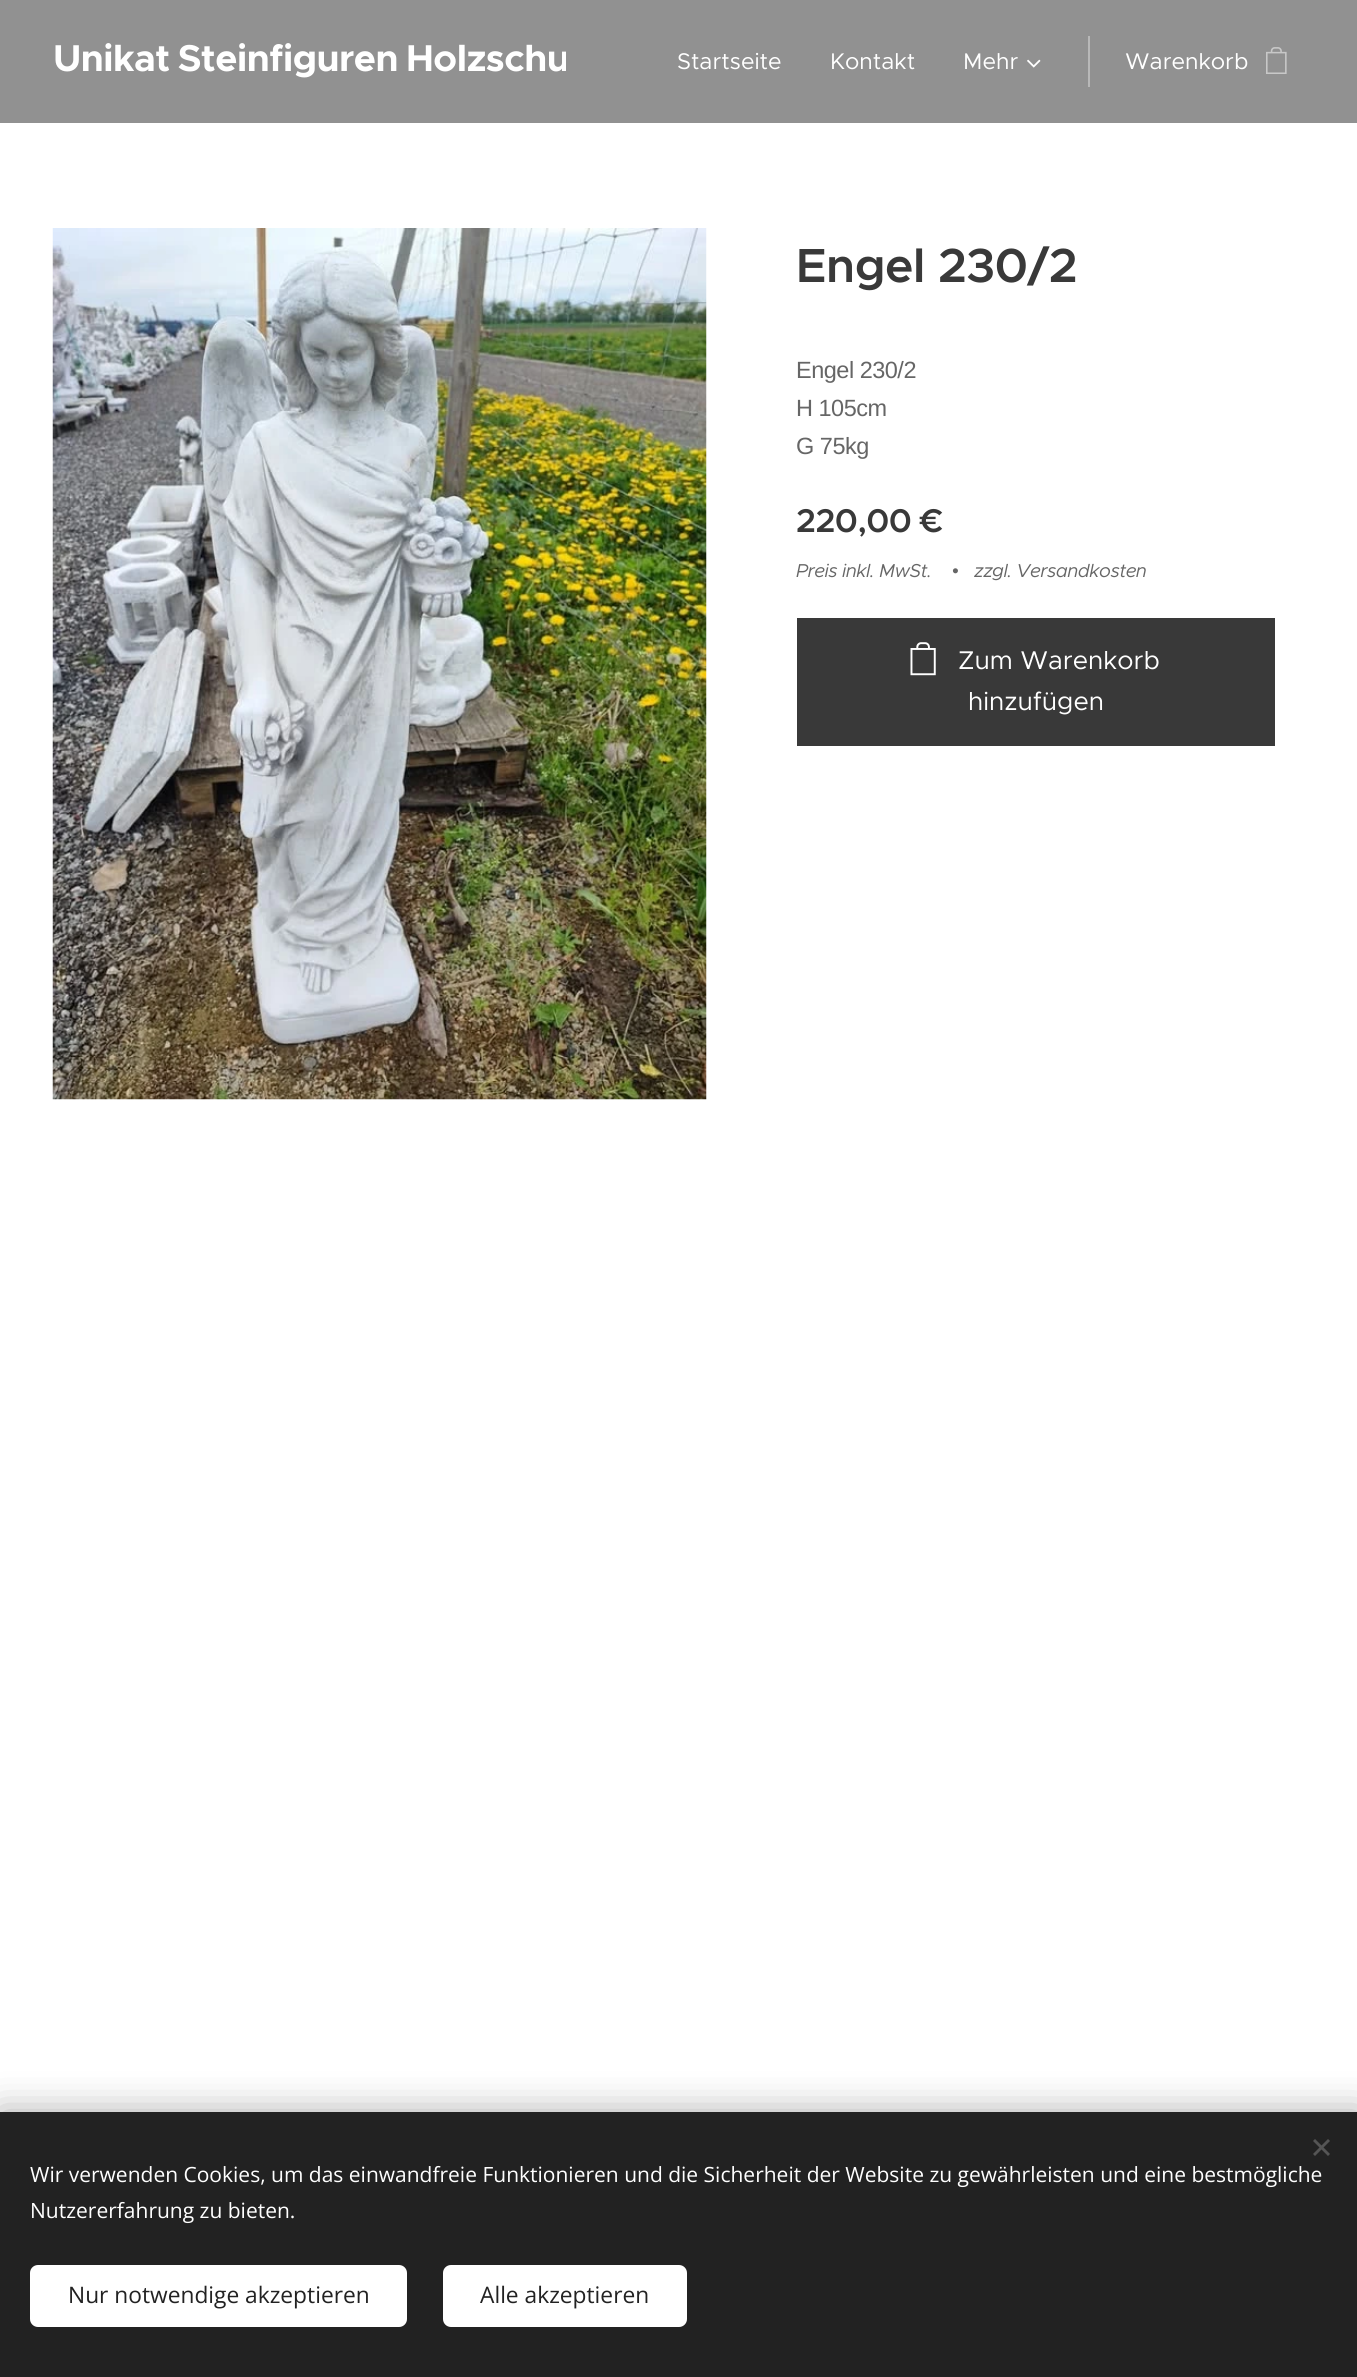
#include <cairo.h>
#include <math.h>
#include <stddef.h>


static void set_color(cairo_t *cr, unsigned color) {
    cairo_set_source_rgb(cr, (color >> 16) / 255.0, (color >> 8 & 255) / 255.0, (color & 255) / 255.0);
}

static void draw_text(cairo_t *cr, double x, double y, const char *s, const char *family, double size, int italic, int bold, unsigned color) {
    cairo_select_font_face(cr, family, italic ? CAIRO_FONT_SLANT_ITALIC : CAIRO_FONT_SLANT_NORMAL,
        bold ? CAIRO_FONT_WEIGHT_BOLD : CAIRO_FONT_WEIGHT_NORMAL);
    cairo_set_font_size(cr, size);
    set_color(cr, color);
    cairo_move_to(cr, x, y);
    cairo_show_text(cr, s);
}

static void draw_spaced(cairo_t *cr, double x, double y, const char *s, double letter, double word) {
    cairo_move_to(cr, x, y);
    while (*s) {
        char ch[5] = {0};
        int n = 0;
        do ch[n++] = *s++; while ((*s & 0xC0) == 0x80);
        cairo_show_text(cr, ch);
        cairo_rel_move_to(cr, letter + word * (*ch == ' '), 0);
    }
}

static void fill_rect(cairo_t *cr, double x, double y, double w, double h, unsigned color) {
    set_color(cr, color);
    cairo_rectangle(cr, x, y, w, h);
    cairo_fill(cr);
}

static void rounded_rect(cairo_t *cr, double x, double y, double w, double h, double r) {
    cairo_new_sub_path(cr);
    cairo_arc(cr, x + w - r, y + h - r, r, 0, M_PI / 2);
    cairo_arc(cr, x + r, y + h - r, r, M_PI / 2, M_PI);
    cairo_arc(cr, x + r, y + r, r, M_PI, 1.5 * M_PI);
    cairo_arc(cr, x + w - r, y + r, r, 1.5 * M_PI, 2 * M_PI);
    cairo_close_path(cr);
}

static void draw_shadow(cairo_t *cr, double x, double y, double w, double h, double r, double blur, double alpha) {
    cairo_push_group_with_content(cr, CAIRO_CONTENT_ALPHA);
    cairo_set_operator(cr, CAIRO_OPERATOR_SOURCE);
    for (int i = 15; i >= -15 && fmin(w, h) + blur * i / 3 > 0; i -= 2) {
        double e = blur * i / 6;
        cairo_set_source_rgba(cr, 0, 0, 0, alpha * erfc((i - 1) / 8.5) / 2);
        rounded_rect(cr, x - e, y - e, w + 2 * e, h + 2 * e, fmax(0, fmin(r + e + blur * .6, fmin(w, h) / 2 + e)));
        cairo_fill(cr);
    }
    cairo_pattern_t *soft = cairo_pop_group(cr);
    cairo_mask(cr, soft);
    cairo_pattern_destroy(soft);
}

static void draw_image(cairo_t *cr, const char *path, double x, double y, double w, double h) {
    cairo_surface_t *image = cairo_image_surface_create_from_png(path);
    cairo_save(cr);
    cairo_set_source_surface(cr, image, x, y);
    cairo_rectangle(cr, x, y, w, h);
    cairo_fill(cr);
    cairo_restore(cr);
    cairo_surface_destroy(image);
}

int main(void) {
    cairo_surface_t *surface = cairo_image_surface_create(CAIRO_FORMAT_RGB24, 1357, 2377);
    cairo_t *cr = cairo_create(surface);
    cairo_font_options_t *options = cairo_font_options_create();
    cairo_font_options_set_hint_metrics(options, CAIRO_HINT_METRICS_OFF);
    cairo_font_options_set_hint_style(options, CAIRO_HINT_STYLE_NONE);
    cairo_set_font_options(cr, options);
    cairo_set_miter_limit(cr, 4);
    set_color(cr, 0xFFFFFF);
    cairo_paint(cr);
    fill_rect(cr, 0, 0, 1357, 123, 0x919191);
    cairo_save(cr);
    cairo_rectangle(cr, 45, 36, 521, 53);
    cairo_clip(cr);
    cairo_select_font_face(cr, "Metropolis", CAIRO_FONT_SLANT_NORMAL, CAIRO_FONT_WEIGHT_BOLD);
    cairo_set_font_size(cr, 37.5);
    set_color(cr, 0xFFFFFF);
    draw_spaced(cr, 53, 71, "Unikat Steinfiguren Holzschu", -0.5, -2);
    cairo_restore(cr);
    draw_text(cr, 677, 69, "Startseite", "Metropolis", 22.75, 0, 0, 0xFFFFFF);
    draw_text(cr, 830, 69, "Kontakt", "Metropolis", 22.75, 0, 0, 0xFFFFFF);
    draw_text(cr, 963, 69, "Mehr", "Metropolis", 22.75, 0, 0, 0xFFFFFF);
    draw_image(cr, "assets/img1.png", 1027, 59, 14, 9);
    fill_rect(cr, 1088, 36, 2, 51, 0xB8B8B8);
    draw_text(cr, 1125, 69, "Warenkorb", "Metropolis", 22.75, 0, 0, 0xFFFFFF);
    draw_image(cr, "assets/img2.png", 1266, 47, 21, 27);
    draw_image(cr, "assets/img3.png", 52, 228, 655, 872);
    cairo_select_font_face(cr, "Metropolis SemiBold", CAIRO_FONT_SLANT_NORMAL, CAIRO_FONT_WEIGHT_NORMAL);
    cairo_set_font_size(cr, 48);
    set_color(cr, 0x393939);
    draw_spaced(cr, 796, 282, "Engel 230/2", -0.5, 0);
    cairo_select_font_face(cr, "Liberation Sans", CAIRO_FONT_SLANT_NORMAL, CAIRO_FONT_WEIGHT_NORMAL);
    cairo_set_font_size(cr, 23.5);
    set_color(cr, 0x666666);
    draw_spaced(cr, 796, 378, "Engel 230/2", -0.5, 0);
    draw_spaced(cr, 796, 416, "H 105cm", -0.5, 0);
    draw_spaced(cr, 796, 454, "G 75kg", -0.5, 0);
    cairo_select_font_face(cr, "Metropolis SemiBold", CAIRO_FONT_SLANT_NORMAL, CAIRO_FONT_WEIGHT_NORMAL);
    cairo_set_font_size(cr, 33);
    set_color(cr, 0x393939);
    draw_spaced(cr, 796, 532, "220,00 €", -0.5, 0);
    cairo_select_font_face(cr, "Metropolis", CAIRO_FONT_SLANT_ITALIC, CAIRO_FONT_WEIGHT_NORMAL);
    cairo_set_font_size(cr, 18.75);
    set_color(cr, 0x666666);
    draw_spaced(cr, 796, 577, "Preis inkl. MwSt.", -0.5, 0);
    cairo_select_font_face(cr, "Liberation Sans", CAIRO_FONT_SLANT_ITALIC, CAIRO_FONT_WEIGHT_NORMAL);
    draw_spaced(cr, 952, 577, "•", -0.5, 0);
    cairo_select_font_face(cr, "Metropolis", CAIRO_FONT_SLANT_ITALIC, CAIRO_FONT_WEIGHT_NORMAL);
    draw_spaced(cr, 974, 577, "zzgl. Versandkosten", -0.5, 0);
    fill_rect(cr, 797, 618, 478, 128, 0x393939);
    draw_image(cr, "assets/img4.png", 910, 642, 26, 34);
    draw_text(cr, 958, 669, "Zum Warenkorb", "Metropolis", 25.75, 0, 0, 0xFFFFFF);
    draw_text(cr, 968, 710, "hinzufügen", "Metropolis", 25.75, 0, 0, 0xFFFFFF);
    set_color(cr, 0x000000);
    draw_shadow(cr, 0, 2112, 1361, 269, 0, 19, 0.33);
    fill_rect(cr, 0, 2112, 1357, 265, 0x222222);
    set_color(cr, 0x555555);
    cairo_new_path(cr);
    cairo_move_to(cr, 1313, 2154);
    cairo_line_to(cr, 1328, 2139);
    cairo_line_to(cr, 1330, 2141);
    cairo_line_to(cr, 1315, 2156);
    cairo_close_path(cr);
    cairo_fill(cr);
    cairo_new_path(cr);
    cairo_move_to(cr, 1315, 2139);
    cairo_line_to(cr, 1330, 2154);
    cairo_line_to(cr, 1328, 2156);
    cairo_line_to(cr, 1313, 2141);
    cairo_close_path(cr);
    cairo_fill(cr);
    draw_text(cr, 30, 2182, "Wir verwenden Cookies, um das einwandfreie Funktionieren und die Sicherheit der Website zu gewährleisten und eine bestmögliche", "Open Sans", 21, 0, 0, 0xFFFFFF);
    draw_text(cr, 30, 2218, "Nutzererfahrung zu bieten.", "Open Sans", 21, 0, 0, 0xFFFFFF);
    rounded_rect(cr, 30, 2265, 377, 62, 8);
    cairo_fill(cr);
    draw_text(cr, 68, 2303, "Nur notwendige akzeptieren", "Open Sans", 22.75, 0, 0, 0x222222);
    set_color(cr, 0xFFFFFF);
    rounded_rect(cr, 443, 2265, 244, 62, 8);
    cairo_fill(cr);
    draw_text(cr, 480, 2303, "Alle akzeptieren", "Open Sans", 22.75, 0, 0, 0x222222);
    cairo_surface_write_to_png(surface, "output.png");
    cairo_font_options_destroy(options);
    cairo_destroy(cr);
    cairo_surface_destroy(surface);
    return 0;
}
